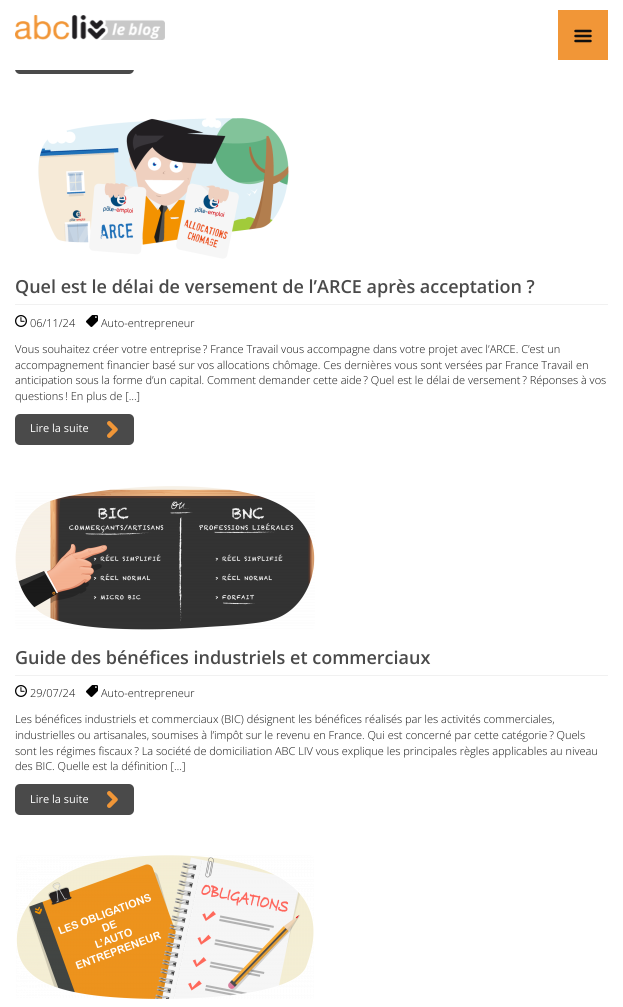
#include <cairo.h>
#include <math.h>
#include <stddef.h>


static void set_color(cairo_t *cr, unsigned color) {
    cairo_set_source_rgb(cr, (color >> 16) / 255.0, (color >> 8 & 255) / 255.0, (color & 255) / 255.0);
}

static void draw_text(cairo_t *cr, double x, double y, const char *s, const char *family, double size, int italic, int bold, unsigned color) {
    cairo_select_font_face(cr, family, italic ? CAIRO_FONT_SLANT_ITALIC : CAIRO_FONT_SLANT_NORMAL,
        bold ? CAIRO_FONT_WEIGHT_BOLD : CAIRO_FONT_WEIGHT_NORMAL);
    cairo_set_font_size(cr, size);
    set_color(cr, color);
    cairo_move_to(cr, x, y);
    cairo_show_text(cr, s);
}

static void fill_rect(cairo_t *cr, double x, double y, double w, double h, unsigned color) {
    set_color(cr, color);
    cairo_rectangle(cr, x, y, w, h);
    cairo_fill(cr);
}

static void rounded_rect(cairo_t *cr, double x, double y, double w, double h, double r) {
    cairo_new_sub_path(cr);
    cairo_arc(cr, x + w - r, y + h - r, r, 0, M_PI / 2);
    cairo_arc(cr, x + r, y + h - r, r, M_PI / 2, M_PI);
    cairo_arc(cr, x + r, y + r, r, M_PI, 1.5 * M_PI);
    cairo_arc(cr, x + w - r, y + r, r, 1.5 * M_PI, 2 * M_PI);
    cairo_close_path(cr);
}

static void draw_image(cairo_t *cr, const char *path, double x, double y, double w, double h) {
    cairo_surface_t *image = cairo_image_surface_create_from_png(path);
    cairo_save(cr);
    cairo_set_source_surface(cr, image, x, y);
    cairo_rectangle(cr, x, y, w, h);
    cairo_fill(cr);
    cairo_restore(cr);
    cairo_surface_destroy(image);
}

int main(void) {
    cairo_surface_t *surface = cairo_image_surface_create(CAIRO_FORMAT_RGB24, 623, 1007);
    cairo_t *cr = cairo_create(surface);
    cairo_font_options_t *options = cairo_font_options_create();
    cairo_font_options_set_hint_metrics(options, CAIRO_HINT_METRICS_OFF);
    cairo_font_options_set_hint_style(options, CAIRO_HINT_STYLE_NONE);
    cairo_set_font_options(cr, options);
    cairo_set_miter_limit(cr, 4);
    set_color(cr, 0xFFFFFF);
    cairo_paint(cr);
    set_color(cr, 0x4A4A4A);
    rounded_rect(cr, 15, 44, 119, 30, 5);
    cairo_fill(cr);
    fill_rect(cr, 15, 44, 119, 26, 0xFFFFFF);
    draw_image(cr, "assets/img1.png", 15, 15, 150, 25);
    fill_rect(cr, 558, 10, 50, 50, 0xF19637);
    draw_image(cr, "assets/img2.png", 574, 29, 18, 14);
    draw_image(cr, "assets/img3.png", 38, 118, 251, 141);
    fill_rect(cr, 15, 304, 593, 1, 0xF1F1F1);
    draw_text(cr, 15, 293, "Quel est le délai de versement de l’ARCE après acceptation ?", "Open Sans SemiBold", 18, 0, 0, 0x4A4A4A);
    draw_image(cr, "assets/img4.png", 15, 315, 12, 12);
    draw_text(cr, 30, 327, "06/11/24", "Open Sans Light", 11, 0, 0, 0x101010);
    draw_image(cr, "assets/img5.png", 86, 315, 12, 12);
    draw_text(cr, 101, 327, "Auto-entrepreneur", "Open Sans Light", 11, 0, 0, 0x101010);
    draw_text(cr, 15, 353, "Vous souhaitez créer votre entreprise ? France Travail vous accompagne dans votre projet avec l’ARCE. C’est un", "Open Sans Light", 11, 0, 0, 0x101010);
    draw_text(cr, 15, 369, "accompagnement financier basé sur vos allocations chômage. Ces dernières vous sont versées par France Travail en", "Open Sans Light", 11, 0, 0, 0x101010);
    draw_text(cr, 15, 384, "anticipation sous la forme d’un capital. Comment demander cette aide ? Quel est le délai de versement ? Réponses à vos", "Open Sans Light", 11, 0, 0, 0x101010);
    draw_text(cr, 15, 400, "questions ! En plus de […]", "Open Sans Light", 11, 0, 0, 0x101010);
    set_color(cr, 0x4A4A4A);
    rounded_rect(cr, 15, 414, 119, 31, 5);
    cairo_fill(cr);
    draw_text(cr, 30, 432, "Lire la suite", "Open Sans", 11, 0, 0, 0xFFFFFF);
    draw_image(cr, "assets/img6.png", 107, 421, 11, 17);
    draw_image(cr, "assets/img7.png", 15, 486, 300, 144);
    fill_rect(cr, 15, 675, 593, 1, 0xF1F1F1);
    draw_text(cr, 15, 664, "Guide des bénéfices industriels et commerciaux", "Open Sans SemiBold", 18, 0, 0, 0x4A4A4A);
    draw_image(cr, "assets/img4.png", 15, 685, 12, 12);
    draw_text(cr, 30, 697, "29/07/24", "Open Sans Light", 11, 0, 0, 0x101010);
    draw_image(cr, "assets/img5.png", 86, 685, 12, 12);
    draw_text(cr, 101, 697, "Auto-entrepreneur", "Open Sans Light", 11, 0, 0, 0x101010);
    draw_text(cr, 15, 723, "Les bénéfices industriels et commerciaux (BIC) désignent les bénéfices réalisés par les activités commerciales,", "Open Sans Light", 11, 0, 0, 0x101010);
    draw_text(cr, 15, 739, "industrielles ou artisanales, soumises à l’impôt sur le revenu en France. Qui est concerné par cette catégorie ? Quels", "Open Sans Light", 11, 0, 0, 0x101010);
    draw_text(cr, 15, 755, "sont les régimes fiscaux ? La société de domiciliation ABC LIV vous explique les principales règles applicables au niveau", "Open Sans Light", 11, 0, 0, 0x101010);
    draw_text(cr, 15, 770, "des BIC. Quelle est la définition […]", "Open Sans Light", 11, 0, 0, 0x101010);
    set_color(cr, 0x4A4A4A);
    rounded_rect(cr, 15, 784, 119, 31, 5);
    cairo_fill(cr);
    draw_text(cr, 30, 803, "Lire la suite", "Open Sans", 11, 0, 0, 0xFFFFFF);
    draw_image(cr, "assets/img6.png", 107, 791, 11, 17);
    draw_image(cr, "assets/img8.png", 16, 855, 298, 144);
    cairo_surface_write_to_png(surface, "output.png");
    cairo_font_options_destroy(options);
    cairo_destroy(cr);
    cairo_surface_destroy(surface);
    return 0;
}
